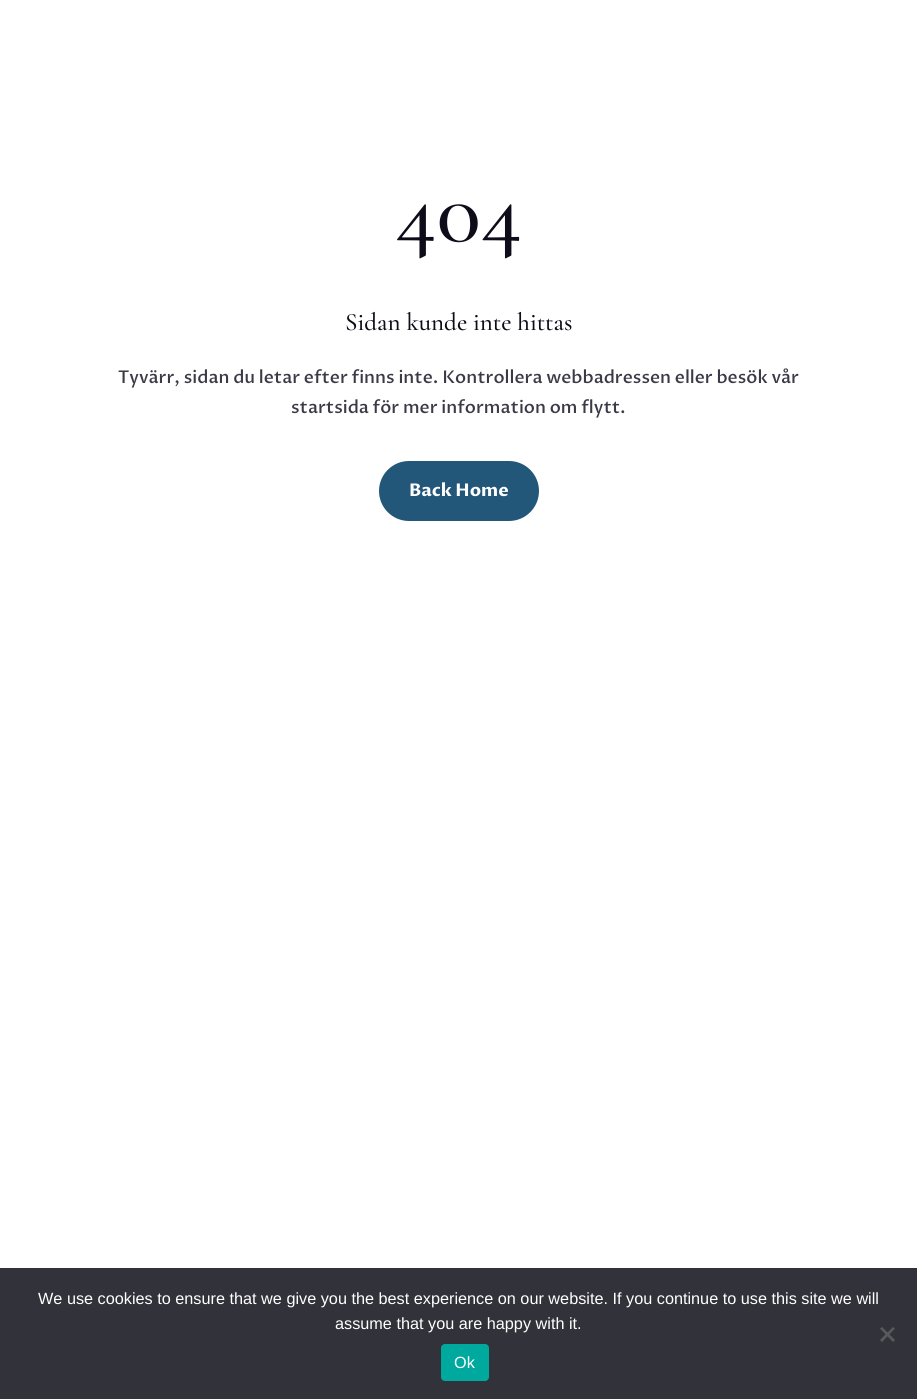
#include <cairo.h>
#include <math.h>
#include <stddef.h>


static void set_color(cairo_t *cr, unsigned color) {
    cairo_set_source_rgb(cr, (color >> 16) / 255.0, (color >> 8 & 255) / 255.0, (color & 255) / 255.0);
}

static void draw_text(cairo_t *cr, double x, double y, const char *s, const char *family, double size, int italic, int bold, unsigned color) {
    cairo_select_font_face(cr, family, italic ? CAIRO_FONT_SLANT_ITALIC : CAIRO_FONT_SLANT_NORMAL,
        bold ? CAIRO_FONT_WEIGHT_BOLD : CAIRO_FONT_WEIGHT_NORMAL);
    cairo_set_font_size(cr, size);
    set_color(cr, color);
    cairo_move_to(cr, x, y);
    cairo_show_text(cr, s);
}

static void fill_rect(cairo_t *cr, double x, double y, double w, double h, unsigned color) {
    set_color(cr, color);
    cairo_rectangle(cr, x, y, w, h);
    cairo_fill(cr);
}

static void rounded_rect(cairo_t *cr, double x, double y, double w, double h, double r) {
    cairo_new_sub_path(cr);
    cairo_arc(cr, x + w - r, y + h - r, r, 0, M_PI / 2);
    cairo_arc(cr, x + r, y + h - r, r, M_PI / 2, M_PI);
    cairo_arc(cr, x + r, y + r, r, M_PI, 1.5 * M_PI);
    cairo_arc(cr, x + w - r, y + r, r, 1.5 * M_PI, 2 * M_PI);
    cairo_close_path(cr);
}

int main(void) {
    cairo_surface_t *surface = cairo_image_surface_create(CAIRO_FORMAT_RGB24, 917, 1399);
    cairo_t *cr = cairo_create(surface);
    cairo_font_options_t *options = cairo_font_options_create();
    cairo_font_options_set_hint_metrics(options, CAIRO_HINT_METRICS_OFF);
    cairo_font_options_set_hint_style(options, CAIRO_HINT_STYLE_NONE);
    cairo_set_font_options(cr, options);
    cairo_set_miter_limit(cr, 4);
    set_color(cr, 0xFFFFFF);
    cairo_paint(cr);
    draw_text(cr, 395, 241, "404", "Cormorant Garamond Medium", 92, 0, 0, 0x0E0C19);
    draw_text(cr, 345, 330, "Sidan kunde inte hittas", "Cormorant Garamond Medium", 25, 0, 0, 0x0E0C19);
    draw_text(cr, 118, 383, "Tyvärr, sidan du letar efter finns inte. Kontrollera webbadressen eller besök vår", "Proza Libre Medium", 17.5, 0, 0, 0x3C3A47);
    draw_text(cr, 291, 413, "startsida för mer information om flytt.", "Proza Libre Medium", 17.5, 0, 0, 0x3C3A47);
    set_color(cr, 0x22577A);
    rounded_rect(cr, 379, 461, 160, 60, 30);
    cairo_fill(cr);
    draw_text(cr, 409, 496, "Back Home", "Proza Libre", 17.5, 0, 1, 0xFFFFFF);
    fill_rect(cr, 0, 1268, 917, 131, 0x32323A);
    draw_text(cr, 38, 1304, "We use cookies to ensure that we give you the best experience on our website. If you continue to use this site we will", "Liberation Sans", 16.25, 0, 0, 0xFFFFFF);
    draw_text(cr, 335, 1329, "assume that you are happy with it.", "Liberation Sans", 16.25, 0, 0, 0xFFFFFF);
    set_color(cr, 0x59595D);
    cairo_new_path(cr);
    cairo_move_to(cr, 893, 1327);
    cairo_line_to(cr, 895, 1328.5);
    cairo_line_to(cr, 882, 1342);
    cairo_line_to(cr, 880, 1340);
    cairo_close_path(cr);
    cairo_fill(cr);
    cairo_new_path(cr);
    cairo_move_to(cr, 880, 1328.5);
    cairo_line_to(cr, 882, 1327);
    cairo_line_to(cr, 895, 1340);
    cairo_line_to(cr, 893, 1342);
    cairo_close_path(cr);
    cairo_fill(cr);
    set_color(cr, 0x00A99D);
    rounded_rect(cr, 441, 1344, 48, 37, 4);
    cairo_fill(cr);
    draw_text(cr, 454, 1368, "Ok", "Liberation Sans", 16.25, 0, 0, 0xFFFFFF);
    cairo_surface_write_to_png(surface, "output.png");
    cairo_font_options_destroy(options);
    cairo_destroy(cr);
    cairo_surface_destroy(surface);
    return 0;
}
